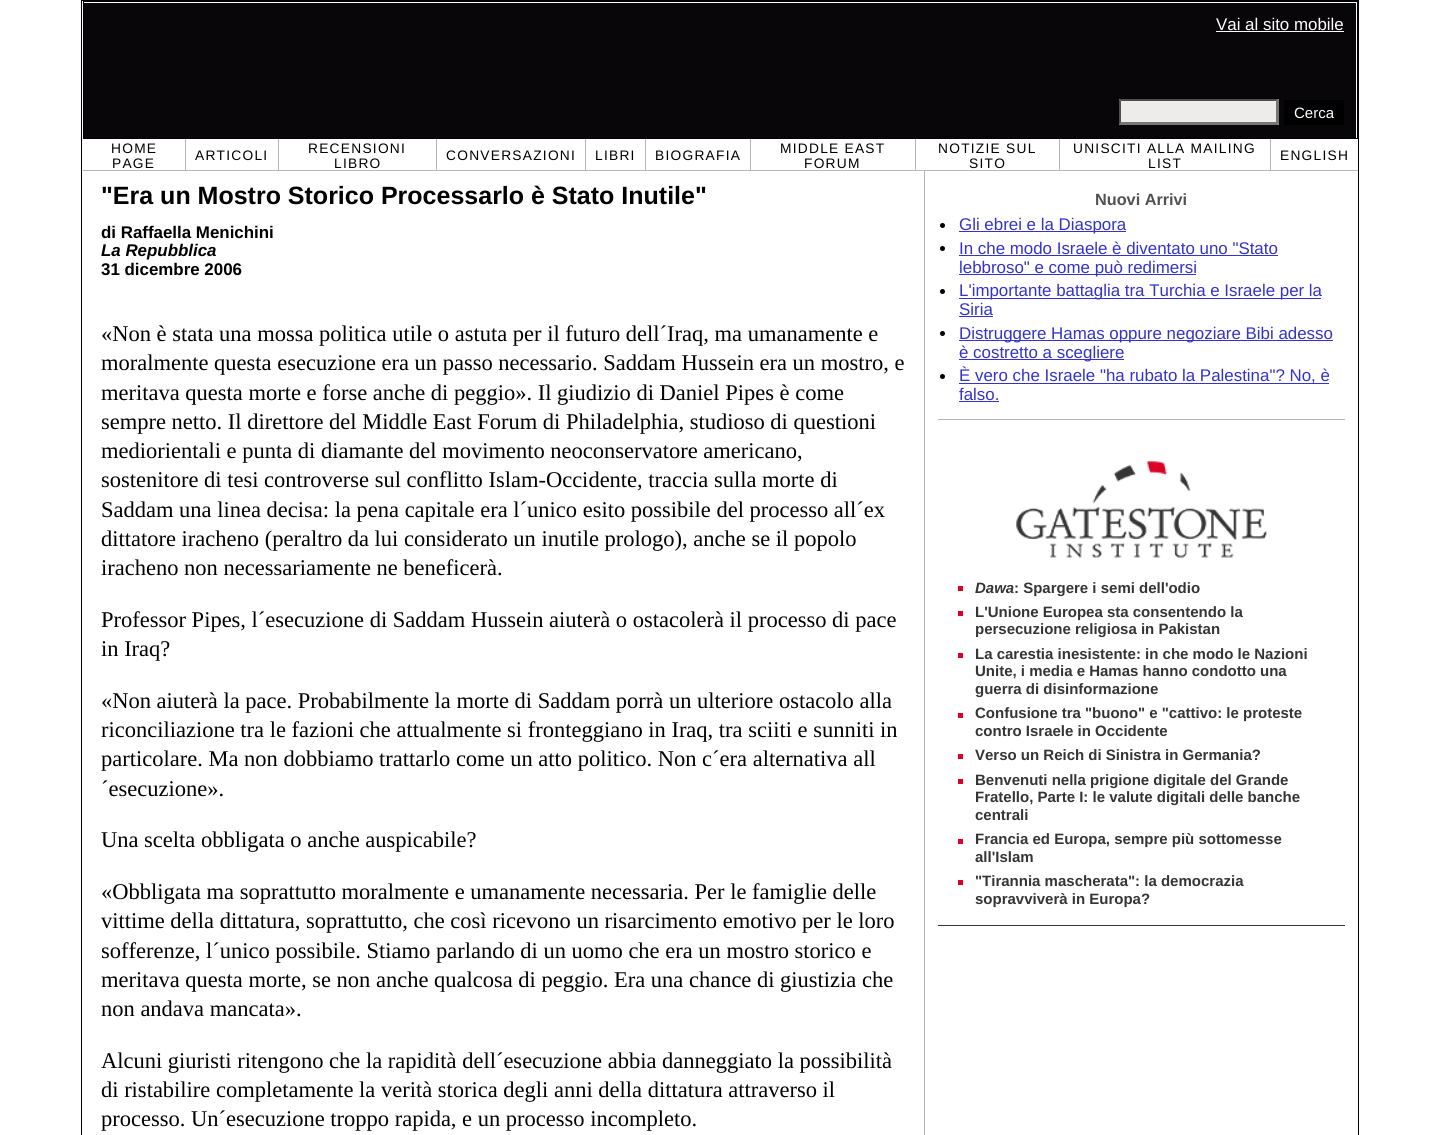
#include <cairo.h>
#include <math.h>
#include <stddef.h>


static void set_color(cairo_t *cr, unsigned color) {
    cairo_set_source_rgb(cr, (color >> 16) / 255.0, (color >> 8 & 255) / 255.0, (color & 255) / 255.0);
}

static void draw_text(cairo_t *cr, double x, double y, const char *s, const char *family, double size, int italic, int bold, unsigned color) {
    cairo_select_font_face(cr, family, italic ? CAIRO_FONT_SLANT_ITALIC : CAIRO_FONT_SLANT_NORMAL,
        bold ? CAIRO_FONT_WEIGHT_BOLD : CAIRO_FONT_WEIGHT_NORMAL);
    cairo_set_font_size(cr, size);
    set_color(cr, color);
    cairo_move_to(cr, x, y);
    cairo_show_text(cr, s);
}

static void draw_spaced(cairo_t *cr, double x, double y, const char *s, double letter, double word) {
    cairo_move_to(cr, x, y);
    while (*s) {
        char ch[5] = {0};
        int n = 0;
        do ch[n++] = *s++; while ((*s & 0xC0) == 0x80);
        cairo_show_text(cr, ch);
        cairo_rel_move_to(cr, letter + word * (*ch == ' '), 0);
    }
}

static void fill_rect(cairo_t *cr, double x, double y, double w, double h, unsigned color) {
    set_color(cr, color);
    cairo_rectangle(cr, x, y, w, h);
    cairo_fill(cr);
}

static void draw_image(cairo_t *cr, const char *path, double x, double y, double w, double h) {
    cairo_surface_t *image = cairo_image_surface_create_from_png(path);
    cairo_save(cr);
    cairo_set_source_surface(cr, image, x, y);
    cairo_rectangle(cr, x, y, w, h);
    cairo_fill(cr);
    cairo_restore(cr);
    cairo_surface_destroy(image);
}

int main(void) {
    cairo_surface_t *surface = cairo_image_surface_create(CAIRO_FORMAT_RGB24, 1439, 1135);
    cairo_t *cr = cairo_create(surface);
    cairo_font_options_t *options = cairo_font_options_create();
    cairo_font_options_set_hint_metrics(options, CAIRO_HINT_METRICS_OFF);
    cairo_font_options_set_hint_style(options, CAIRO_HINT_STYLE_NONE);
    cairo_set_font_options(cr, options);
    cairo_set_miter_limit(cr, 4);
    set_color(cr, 0xFFFFFF);
    cairo_paint(cr);
    cairo_rectangle(cr, 81.5, 0.5, 1277, 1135);
    set_color(cr, 0x000000);
    cairo_set_line_width(cr, 1);
    cairo_stroke(cr);
    cairo_rectangle(cr, 83.5, 1.5, 1274, 137);
    cairo_stroke(cr);
    fill_rect(cr, 84, 3, 881, 135, 0x090609);
    fill_rect(cr, 965, 3, 391, 135, 0x090609);
    draw_text(cr, 1216, 30, "Vai al sito mobile", "Liberation Sans", 16.9, 0, 0, 0xFFFFFF);
    fill_rect(cr, 1216, 31, 128, 1, 0xFFFFFF);
    fill_rect(cr, 1119, 99, 160, 26, 0xEEECE9);
    set_color(cr, 0x4F4F4F);
    cairo_new_path(cr);
    cairo_move_to(cr, 1119, 99);
    cairo_line_to(cr, 1279, 99);
    cairo_line_to(cr, 1276, 101);
    cairo_line_to(cr, 1121, 101);
    cairo_close_path(cr);
    cairo_fill(cr);
    set_color(cr, 0x767676);
    cairo_new_path(cr);
    cairo_move_to(cr, 1279, 99);
    cairo_line_to(cr, 1279, 125);
    cairo_line_to(cr, 1276, 122.5);
    cairo_line_to(cr, 1276, 101);
    cairo_close_path(cr);
    cairo_fill(cr);
    cairo_new_path(cr);
    cairo_move_to(cr, 1279, 125);
    cairo_line_to(cr, 1119, 125);
    cairo_line_to(cr, 1121, 122);
    cairo_line_to(cr, 1276, 122);
    cairo_close_path(cr);
    cairo_fill(cr);
    set_color(cr, 0x4F4F4F);
    cairo_new_path(cr);
    cairo_move_to(cr, 1119, 125);
    cairo_line_to(cr, 1119, 99);
    cairo_line_to(cr, 1121, 101);
    cairo_line_to(cr, 1121, 122.5);
    cairo_close_path(cr);
    cairo_fill(cr);
    fill_rect(cr, 1284, 100, 60, 25, 0x000000);
    draw_text(cr, 1294, 118, "Cerca", "Liberation Sans", 15, 0, 0, 0xFFFFFF);
    fill_rect(cr, 185, 139, 1, 32, 0xB7B7B7);
    fill_rect(cr, 83, 170, 103, 1, 0xB7B7B7);
    cairo_set_font_size(cr, 13.75);
    set_color(cr, 0x000000);
    draw_spaced(cr, 111, 153, "HOME", 1.25, 0);
    draw_spaced(cr, 112, 168, "PAGE", 1.25, 0);
    fill_rect(cr, 278, 139, 1, 32, 0xB7B7B7);
    fill_rect(cr, 186, 170, 93, 1, 0xB7B7B7);
    set_color(cr, 0x000000);
    draw_spaced(cr, 195, 160, "ARTICOLI", 1.25, 0);
    fill_rect(cr, 436, 139, 1, 32, 0xB7B7B7);
    fill_rect(cr, 279, 170, 159, 1, 0xB7B7B7);
    set_color(cr, 0x000000);
    draw_spaced(cr, 308, 153, "RECENSIONI", 1.25, 0);
    draw_spaced(cr, 334, 168, "LIBRO", 1.25, 0);
    fill_rect(cr, 585, 139, 1, 32, 0xB7B7B7);
    fill_rect(cr, 438, 170, 148, 1, 0xB7B7B7);
    set_color(cr, 0x000000);
    draw_spaced(cr, 446, 160, "CONVERSAZIONI", 1.25, 0);
    fill_rect(cr, 645, 139, 1, 32, 0xB7B7B7);
    fill_rect(cr, 586, 170, 60, 1, 0xB7B7B7);
    set_color(cr, 0x000000);
    draw_spaced(cr, 595, 160, "LIBRI", 1.25, 0);
    fill_rect(cr, 750, 139, 1, 32, 0xB7B7B7);
    fill_rect(cr, 646, 170, 105, 1, 0xB7B7B7);
    set_color(cr, 0x000000);
    draw_spaced(cr, 655, 160, "BIOGRAFIA", 1.25, 0);
    fill_rect(cr, 915, 139, 1, 32, 0xB7B7B7);
    fill_rect(cr, 751, 170, 165, 1, 0xB7B7B7);
    set_color(cr, 0x000000);
    draw_spaced(cr, 780, 153, "MIDDLE EAST", 1.25, 0);
    draw_spaced(cr, 804, 168, "FORUM", 1.25, 0);
    fill_rect(cr, 1059, 139, 1, 32, 0xB7B7B7);
    fill_rect(cr, 916, 170, 144, 1, 0xB7B7B7);
    set_color(cr, 0x000000);
    draw_spaced(cr, 938, 153, "NOTIZIE SUL", 1.25, 0);
    draw_spaced(cr, 969, 168, "SITO", 1.25, 0);
    fill_rect(cr, 1270, 139, 1, 32, 0xB7B7B7);
    fill_rect(cr, 1060, 170, 298, 1, 0xB7B7B7);
    set_color(cr, 0x000000);
    draw_spaced(cr, 1073, 153, "UNISCITI ALLA MAILING", 1.25, 0);
    draw_spaced(cr, 1148, 168, "LIST", 1.25, 0);
    draw_spaced(cr, 1280, 160, "ENGLISH", 1.25, 0);
    draw_text(cr, 101, 204, "\"Era un Mostro Storico Processarlo è Stato Inutile\"", "Liberation Sans", 25, 0, 1, 0x000000);
    draw_text(cr, 101, 238, "di Raffaella Menichini", "Liberation Sans", 16.9, 0, 1, 0x000000);
    draw_text(cr, 101, 256, "La Repubblica", "Liberation Sans", 16.9, 1, 1, 0x000000);
    draw_text(cr, 101, 275, "31 dicembre 2006", "Liberation Sans", 16.9, 0, 1, 0x000000);
    draw_text(cr, 101, 341, "«Non è stata una mossa politica utile o astuta per il futuro dell´Iraq, ma umanamente e", "Liberation Serif", 22.5, 0, 0, 0x000000);
    draw_text(cr, 101, 370, "moralmente questa esecuzione era un passo necessario. Saddam Hussein era un mostro, e", "Liberation Serif", 22.5, 0, 0, 0x000000);
    draw_text(cr, 101, 400, "meritava questa morte e forse anche di peggio». Il giudizio di Daniel Pipes è come", "Liberation Serif", 22.5, 0, 0, 0x000000);
    draw_text(cr, 101, 429, "sempre netto. Il direttore del Middle East Forum di Philadelphia, studioso di questioni", "Liberation Serif", 22.5, 0, 0, 0x000000);
    draw_text(cr, 101, 458, "mediorientali e punta di diamante del movimento neoconservatore americano,", "Liberation Serif", 22.5, 0, 0, 0x000000);
    draw_text(cr, 101, 487, "sostenitore di tesi controverse sul conflitto Islam-Occidente, traccia sulla morte di", "Liberation Serif", 22.5, 0, 0, 0x000000);
    draw_text(cr, 101, 517, "Saddam una linea decisa: la pena capitale era l´unico esito possibile del processo all´ex", "Liberation Serif", 22.5, 0, 0, 0x000000);
    draw_text(cr, 101, 546, "dittatore iracheno (peraltro da lui considerato un inutile prologo), anche se il popolo", "Liberation Serif", 22.5, 0, 0, 0x000000);
    draw_text(cr, 101, 575, "iracheno non necessariamente ne beneficerà.", "Liberation Serif", 22.5, 0, 0, 0x000000);
    draw_text(cr, 101, 627, "Professor Pipes, l´esecuzione di Saddam Hussein aiuterà o ostacolerà il processo di pace", "Liberation Serif", 22.5, 0, 0, 0x000000);
    draw_text(cr, 101, 656, "in Iraq?", "Liberation Serif", 22.5, 0, 0, 0x000000);
    draw_text(cr, 101, 708, "«Non aiuterà la pace. Probabilmente la morte di Saddam porrà un ulteriore ostacolo alla", "Liberation Serif", 22.5, 0, 0, 0x000000);
    draw_text(cr, 101, 737, "riconciliazione tra le fazioni che attualmente si fronteggiano in Iraq, tra sciiti e sunniti in", "Liberation Serif", 22.5, 0, 0, 0x000000);
    draw_text(cr, 101, 766, "particolare. Ma non dobbiamo trattarlo come un atto politico. Non c´era alternativa all", "Liberation Serif", 22.5, 0, 0, 0x000000);
    draw_text(cr, 101, 796, "´esecuzione».", "Liberation Serif", 22.5, 0, 0, 0x000000);
    draw_text(cr, 101, 847, "Una scelta obbligata o anche auspicabile?", "Liberation Serif", 22.5, 0, 0, 0x000000);
    draw_text(cr, 101, 899, "«Obbligata ma soprattutto moralmente e umanamente necessaria. Per le famiglie delle", "Liberation Serif", 22.5, 0, 0, 0x000000);
    draw_text(cr, 101, 928, "vittime della dittatura, soprattutto, che così ricevono un risarcimento emotivo per le loro", "Liberation Serif", 22.5, 0, 0, 0x000000);
    draw_text(cr, 101, 958, "sofferenze, l´unico possibile. Stiamo parlando di un uomo che era un mostro storico e", "Liberation Serif", 22.5, 0, 0, 0x000000);
    draw_text(cr, 101, 987, "meritava questa morte, se non anche qualcosa di peggio. Era una chance di giustizia che", "Liberation Serif", 22.5, 0, 0, 0x000000);
    draw_text(cr, 101, 1016, "non andava mancata».", "Liberation Serif", 22.5, 0, 0, 0x000000);
    draw_text(cr, 101, 1068, "Alcuni giuristi ritengono che la rapidità dell´esecuzione abbia danneggiato la possibilità", "Liberation Serif", 22.5, 0, 0, 0x000000);
    draw_text(cr, 101, 1097, "di ristabilire completamente la verità storica degli anni della dittatura attraverso il", "Liberation Serif", 22.5, 0, 0, 0x000000);
    draw_text(cr, 101, 1126, "processo. Un´esecuzione troppo rapida, e un processo incompleto.", "Liberation Serif", 22.5, 0, 0, 0x000000);
    fill_rect(cr, 924, 171, 1, 964, 0xB7B7B7);
    fill_rect(cr, 938, 419, 407, 1, 0xB7B7B7);
    draw_text(cr, 1095, 205, "Nuovi Arrivi", "Liberation Sans", 16.25, 0, 1, 0x525050);
    set_color(cr, 0x000000);
    cairo_new_path(cr);
    cairo_arc(cr, 942.5, 225.5, 2.5, 0, 2 * M_PI);
    cairo_fill(cr);
    fill_rect(cr, 959, 231, 167, 1, 0x3333CC);
    draw_text(cr, 959, 230, "Gli ebrei e la Diaspora", "Liberation Sans", 16.9, 0, 0, 0x3333CC);
    set_color(cr, 0x000000);
    cairo_new_path(cr);
    cairo_arc(cr, 942.5, 248.5, 2.5, 0, 2 * M_PI);
    cairo_fill(cr);
    draw_text(cr, 959, 254, "In che modo Israele è diventato uno \"Stato", "Liberation Sans", 16.9, 0, 0, 0x3333CC);
    fill_rect(cr, 959, 255, 319, 1, 0x3333CC);
    fill_rect(cr, 959, 274, 237, 1, 0x3333CC);
    draw_text(cr, 959, 273, "lebbroso\" e come può redimersi", "Liberation Sans", 16.9, 0, 0, 0x3333CC);
    set_color(cr, 0x000000);
    cairo_new_path(cr);
    cairo_arc(cr, 942.5, 291.5, 2.5, 0, 2 * M_PI);
    cairo_fill(cr);
    fill_rect(cr, 959, 298, 362, 1, 0x3333CC);
    draw_text(cr, 959, 296, "L'importante battaglia tra Turchia e Israele per la", "Liberation Sans", 16.9, 0, 0, 0x3333CC);
    draw_text(cr, 959, 315, "Siria", "Liberation Sans", 16.9, 0, 0, 0x3333CC);
    fill_rect(cr, 959, 316, 34, 1, 0x3333CC);
    set_color(cr, 0x000000);
    cairo_new_path(cr);
    cairo_arc(cr, 942.5, 333.5, 2.5, 0, 2 * M_PI);
    cairo_fill(cr);
    fill_rect(cr, 959, 340, 374, 1, 0x3333CC);
    draw_text(cr, 959, 339, "Distruggere Hamas oppure negoziare Bibi adesso", "Liberation Sans", 16.9, 0, 0, 0x3333CC);
    fill_rect(cr, 959, 359, 165, 1, 0x3333CC);
    draw_text(cr, 959, 358, "è costretto a scegliere", "Liberation Sans", 16.9, 0, 0, 0x3333CC);
    set_color(cr, 0x000000);
    cairo_new_path(cr);
    cairo_arc(cr, 942.5, 376.5, 2.5, 0, 2 * M_PI);
    cairo_fill(cr);
    fill_rect(cr, 959, 383, 370, 1, 0x3333CC);
    draw_text(cr, 959, 381, "È vero che Israele \"ha rubato la Palestina\"? No, è", "Liberation Sans", 16.9, 0, 0, 0x3333CC);
    draw_text(cr, 959, 400, "falso.", "Liberation Sans", 16.9, 0, 0, 0x3333CC);
    fill_rect(cr, 959, 401, 40, 1, 0x3333CC);
    fill_rect(cr, 938, 925, 407, 1, 0x353535);
    draw_image(cr, "assets/img1.png", 1016, 461, 251, 97);
    fill_rect(cr, 958, 586, 5, 5, 0xDA0026);
    draw_text(cr, 975, 593, "Dawa", "Liberation Sans", 15, 1, 1, 0x353535);
    draw_text(cr, 1014, 593, ": Spargere i semi dell'odio", "Liberation Sans", 15, 0, 1, 0x353535);
    fill_rect(cr, 958, 611, 5, 5, 0xDA0026);
    draw_text(cr, 975, 617, "L'Unione Europea sta consentendo la", "Liberation Sans", 15, 0, 1, 0x353535);
    draw_text(cr, 975, 634, "persecuzione religiosa in Pakistan", "Liberation Sans", 15, 0, 1, 0x353535);
    fill_rect(cr, 958, 653, 5, 5, 0xDA0026);
    draw_text(cr, 975, 659, "La carestia inesistente: in che modo le Nazioni", "Liberation Sans", 15, 0, 1, 0x353535);
    draw_text(cr, 975, 676, "Unite, i media e Hamas hanno condotto una", "Liberation Sans", 15, 0, 1, 0x353535);
    draw_text(cr, 975, 694, "guerra di disinformazione", "Liberation Sans", 15, 0, 1, 0x353535);
    fill_rect(cr, 958, 713, 5, 5, 0xDA0026);
    draw_text(cr, 975, 718, "Confusione tra \"buono\" e \"cattivo: le proteste", "Liberation Sans", 15, 0, 1, 0x353535);
    draw_text(cr, 975, 736, "contro Israele in Occidente", "Liberation Sans", 15, 0, 1, 0x353535);
    fill_rect(cr, 958, 754, 5, 5, 0xDA0026);
    draw_text(cr, 975, 760, "Verso un Reich di Sinistra in Germania?", "Liberation Sans", 15, 0, 1, 0x353535);
    fill_rect(cr, 958, 779, 5, 5, 0xDA0026);
    draw_text(cr, 975, 785, "Benvenuti nella prigione digitale del Grande", "Liberation Sans", 15, 0, 1, 0x353535);
    draw_text(cr, 975, 802, "Fratello, Parte I: le valute digitali delle banche", "Liberation Sans", 15, 0, 1, 0x353535);
    draw_text(cr, 975, 820, "centrali", "Liberation Sans", 15, 0, 1, 0x353535);
    fill_rect(cr, 958, 839, 5, 5, 0xDA0026);
    draw_text(cr, 975, 844, "Francia ed Europa, sempre più sottomesse", "Liberation Sans", 15, 0, 1, 0x353535);
    draw_text(cr, 975, 862, "all'Islam", "Liberation Sans", 15, 0, 1, 0x353535);
    fill_rect(cr, 958, 880, 5, 5, 0xDA0026);
    draw_text(cr, 975, 886, "\"Tirannia mascherata\": la democrazia", "Liberation Sans", 15, 0, 1, 0x353535);
    draw_text(cr, 975, 904, "sopravviverà in Europa?", "Liberation Sans", 15, 0, 1, 0x353535);
    cairo_surface_write_to_png(surface, "output.png");
    cairo_font_options_destroy(options);
    cairo_destroy(cr);
    cairo_surface_destroy(surface);
    return 0;
}
